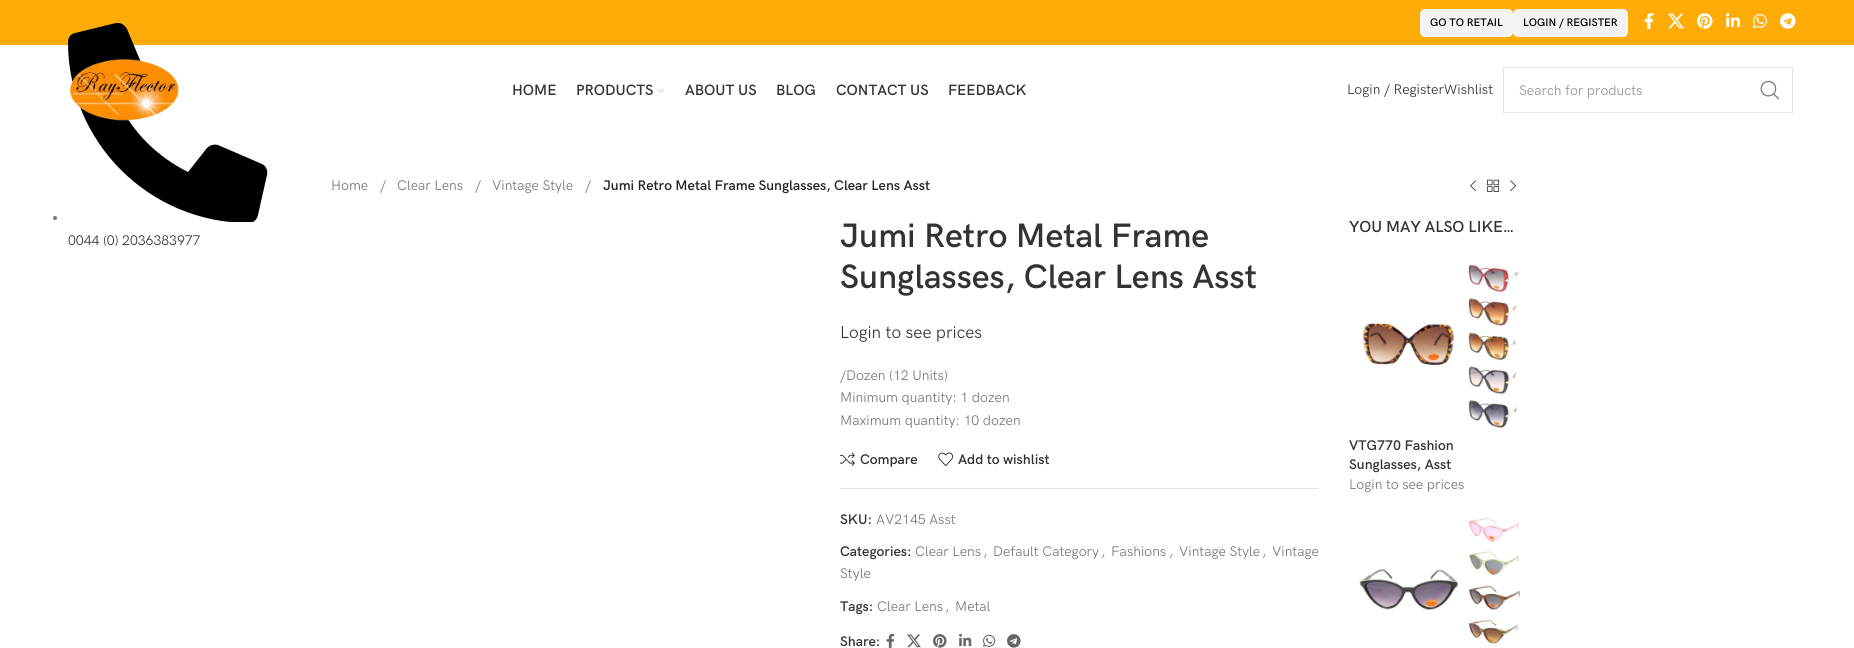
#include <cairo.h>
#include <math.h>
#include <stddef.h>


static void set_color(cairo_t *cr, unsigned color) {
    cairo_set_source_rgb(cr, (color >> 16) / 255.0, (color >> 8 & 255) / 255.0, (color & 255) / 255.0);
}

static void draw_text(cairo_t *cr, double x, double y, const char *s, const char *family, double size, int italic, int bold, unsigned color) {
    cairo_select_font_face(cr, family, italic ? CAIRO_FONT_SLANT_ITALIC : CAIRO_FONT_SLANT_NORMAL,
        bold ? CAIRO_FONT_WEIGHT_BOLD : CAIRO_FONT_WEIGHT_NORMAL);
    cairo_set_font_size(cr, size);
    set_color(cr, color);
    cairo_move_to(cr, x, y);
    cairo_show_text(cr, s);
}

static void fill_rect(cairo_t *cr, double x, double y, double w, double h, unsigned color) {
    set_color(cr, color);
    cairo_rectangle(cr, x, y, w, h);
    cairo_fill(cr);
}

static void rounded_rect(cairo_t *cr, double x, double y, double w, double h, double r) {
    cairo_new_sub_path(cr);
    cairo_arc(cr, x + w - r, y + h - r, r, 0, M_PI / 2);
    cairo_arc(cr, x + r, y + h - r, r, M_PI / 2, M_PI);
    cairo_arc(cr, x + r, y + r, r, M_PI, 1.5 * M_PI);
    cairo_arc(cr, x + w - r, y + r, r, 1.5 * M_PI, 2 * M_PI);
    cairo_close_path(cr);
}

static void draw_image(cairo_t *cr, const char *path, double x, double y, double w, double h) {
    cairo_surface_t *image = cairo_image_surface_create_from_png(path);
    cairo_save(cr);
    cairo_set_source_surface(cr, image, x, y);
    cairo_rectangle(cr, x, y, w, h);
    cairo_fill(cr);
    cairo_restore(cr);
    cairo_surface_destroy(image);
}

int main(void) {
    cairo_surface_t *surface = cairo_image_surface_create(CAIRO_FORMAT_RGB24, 1854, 648);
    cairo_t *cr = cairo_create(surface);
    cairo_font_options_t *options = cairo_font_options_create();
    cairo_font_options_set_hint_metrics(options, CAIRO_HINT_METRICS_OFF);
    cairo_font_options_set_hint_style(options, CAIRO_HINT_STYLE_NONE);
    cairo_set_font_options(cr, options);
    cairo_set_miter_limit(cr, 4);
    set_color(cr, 0xFFFFFF);
    cairo_paint(cr);
    fill_rect(cr, 0, 0, 1854, 45, 0xFFAC08);
    set_color(cr, 0xF3F3F3);
    rounded_rect(cr, 1420, 9, 93, 28, 5);
    cairo_fill(cr);
    draw_text(cr, 1430, 26, "GO TO RETAIL", "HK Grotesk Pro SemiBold", 11, 0, 0, 0x000000);
    set_color(cr, 0xF3F3F3);
    rounded_rect(cr, 1513, 9, 115, 28, 5);
    cairo_fill(cr);
    draw_text(cr, 1523, 26, "LOGIN / REGISTER", "HK Grotesk Pro SemiBold", 11, 0, 0, 0x000000);
    draw_image(cr, "assets/img1.png", 1644, 13, 10, 16);
    draw_image(cr, "assets/img2.png", 1668, 13, 16, 16);
    draw_image(cr, "assets/img3.png", 1697, 13, 16, 16);
    draw_image(cr, "assets/img4.png", 1726, 13, 14, 14);
    draw_image(cr, "assets/img5.png", 1753, 14, 14, 14);
    draw_image(cr, "assets/img6.png", 1780, 13, 16, 16);
    set_color(cr, 0x777777);
    cairo_arc(cr, 55, 218, 2, 0, 2 * M_PI);
    cairo_fill(cr);
    draw_text(cr, 68, 245, "0044 (0) 2036383977", "HK Grotesk Pro", 14, 0, 0, 0x333333);
    cairo_save(cr);
    cairo_rectangle(cr, 68, 23, 200, 199);
    cairo_clip(cr);
    set_color(cr, 0x000000);
    cairo_new_path(cr);
    cairo_move_to(cr, 262, 164);
    cairo_line_to(cr, 218, 145);
    cairo_curve_to(cr, 214, 144, 210, 145, 207, 148);
    cairo_line_to(cr, 188, 172);
    cairo_curve_to(cr, 158, 157, 133, 133, 119, 103);
    cairo_line_to(cr, 143, 83);
    cairo_curve_to(cr, 146, 81, 147, 76, 145, 72);
    cairo_line_to(cr, 127, 29);
    cairo_curve_to(cr, 125, 25, 120, 22, 116, 23);
    cairo_line_to(cr, 75, 33);
    cairo_curve_to(cr, 71, 34, 68, 37, 68, 42);
    cairo_curve_to(cr, 68, 142, 149, 223, 249, 223);
    cairo_curve_to(cr, 253, 223, 257, 220, 258, 215);
    cairo_line_to(cr, 267, 175);
    cairo_curve_to(cr, 268, 170, 266, 166, 262, 164);
    cairo_close_path(cr);
    cairo_fill(cr);
    cairo_restore(cr);
    draw_image(cr, "assets/img7.png", 69, 58, 110, 63);
    draw_text(cr, 512, 95, "HOME", "HK Grotesk Pro SemiBold", 15, 0, 0, 0x333333);
    draw_text(cr, 576, 95, "PRODUCTS", "HK Grotesk Pro SemiBold", 15, 0, 0, 0x333333);
    draw_image(cr, "assets/img8.png", 657, 89, 7, 4);
    draw_text(cr, 685, 95, "ABOUT US", "HK Grotesk Pro SemiBold", 15, 0, 0, 0x333333);
    draw_text(cr, 776, 95, "BLOG", "HK Grotesk Pro SemiBold", 15, 0, 0, 0x333333);
    draw_text(cr, 836, 95, "CONTACT US", "HK Grotesk Pro SemiBold", 15, 0, 0, 0x333333);
    draw_text(cr, 948, 95, "FEEDBACK", "HK Grotesk Pro SemiBold", 15, 0, 0, 0x333333);
    draw_text(cr, 1347, 94, "Login / RegisterWishlist", "HK Grotesk Pro", 14, 0, 0, 0x333333);
    cairo_rectangle(cr, 1503.5, 67.5, 289, 45);
    set_color(cr, 0xE6E6E6);
    cairo_set_line_width(cr, 1);
    cairo_stroke(cr);
    draw_text(cr, 1519, 95, "Search for products", "HK Grotesk Pro", 14, 0, 0, 0x919191);
    draw_image(cr, "assets/img9.png", 1760, 80, 20, 20);
    draw_text(cr, 331, 190, "Home", "HK Grotesk Pro", 14, 0, 0, 0x767676);
    draw_text(cr, 380, 190, "/", "HK Grotesk Pro", 14, 0, 0, 0x767676);
    draw_text(cr, 397, 190, "Clear Lens", "HK Grotesk Pro", 14, 0, 0, 0x767676);
    draw_text(cr, 475, 190, "/", "HK Grotesk Pro", 14, 0, 0, 0x767676);
    draw_text(cr, 492, 190, "Vintage Style", "HK Grotesk Pro", 14, 0, 0, 0x767676);
    draw_text(cr, 585, 190, "/", "HK Grotesk Pro", 14, 0, 0, 0x767676);
    draw_text(cr, 603, 190, "Jumi Retro Metal Frame Sunglasses, Clear Lens Asst", "HK Grotesk Pro SemiBold", 14, 0, 0, 0x242424);
    draw_image(cr, "assets/img10.png", 1470, 180, 6, 12);
    draw_image(cr, "assets/img11.png", 1487, 179, 12, 13);
    draw_image(cr, "assets/img12.png", 1510, 180, 6, 12);
    draw_text(cr, 840, 247, "Jumi Retro Metal Frame", "HK Grotesk Pro SemiBold", 34, 0, 0, 0x333333);
    draw_text(cr, 840, 288, "Sunglasses, Clear Lens Asst", "HK Grotesk Pro SemiBold", 34, 0, 0, 0x333333);
    draw_text(cr, 840, 338, "Login to see prices", "HK Grotesk Pro", 17.25, 0, 0, 0x333333);
    draw_text(cr, 840, 380, "/Dozen (12 Units)", "HK Grotesk Pro", 14, 0, 0, 0x767676);
    draw_text(cr, 840, 402, "Minimum quantity: 1 dozen", "HK Grotesk Pro", 14, 0, 0, 0x767676);
    draw_text(cr, 840, 425, "Maximum quantity: 10 dozen", "HK Grotesk Pro", 14, 0, 0, 0x767676);
    draw_image(cr, "assets/img13.png", 840, 452, 15, 14);
    draw_text(cr, 860, 464, "Compare", "HK Grotesk Pro SemiBold", 14, 0, 0, 0x333333);
    draw_image(cr, "assets/img14.png", 938, 452, 16, 14);
    draw_text(cr, 958, 464, "Add to wishlist", "HK Grotesk Pro SemiBold", 14, 0, 0, 0x333333);
    fill_rect(cr, 840, 488, 479, 1, 0xE4E4E4);
    draw_text(cr, 840, 524, "SKU:", "HK Grotesk Pro SemiBold", 14, 0, 0, 0x333333);
    draw_text(cr, 876, 524, "AV2145 Asst", "HK Grotesk Pro", 14, 0, 0, 0x767676);
    draw_text(cr, 840, 556, "Categories:", "HK Grotesk Pro SemiBold", 14, 0, 0, 0x333333);
    draw_text(cr, 915, 556, "Clear Lens", "HK Grotesk Pro", 14, 0, 0, 0x767676);
    draw_text(cr, 983, 556, ",", "HK Grotesk Pro", 14, 0, 0, 0x767676);
    draw_text(cr, 993, 556, "Default Category", "HK Grotesk Pro", 14, 0, 0, 0x767676);
    draw_text(cr, 1101, 556, ",", "HK Grotesk Pro", 14, 0, 0, 0x767676);
    draw_text(cr, 1111, 556, "Fashions", "HK Grotesk Pro", 14, 0, 0, 0x767676);
    draw_text(cr, 1169, 556, ",", "HK Grotesk Pro", 14, 0, 0, 0x767676);
    draw_text(cr, 1179, 556, "Vintage Style", "HK Grotesk Pro", 14, 0, 0, 0x767676);
    draw_text(cr, 1262, 556, ",", "HK Grotesk Pro", 14, 0, 0, 0x767676);
    draw_text(cr, 1272, 556, "Vintage", "HK Grotesk Pro", 14, 0, 0, 0x767676);
    draw_text(cr, 840, 578, "Style", "HK Grotesk Pro", 14, 0, 0, 0x767676);
    draw_text(cr, 840, 611, "Tags:", "HK Grotesk Pro SemiBold", 14, 0, 0, 0x333333);
    draw_text(cr, 877, 611, "Clear Lens", "HK Grotesk Pro", 14, 0, 0, 0x767676);
    draw_text(cr, 945, 611, ",", "HK Grotesk Pro", 14, 0, 0, 0x767676);
    draw_text(cr, 955, 611, "Metal", "HK Grotesk Pro", 14, 0, 0, 0x767676);
    draw_text(cr, 840, 646, "Share:", "HK Grotesk Pro SemiBold", 14, 0, 0, 0x333333);
    draw_image(cr, "assets/img15.png", 886, 633, 9, 15);
    draw_image(cr, "assets/img16.png", 907, 634, 14, 14);
    draw_image(cr, "assets/img17.png", 933, 634, 14, 14);
    draw_image(cr, "assets/img18.png", 959, 633, 13, 14);
    draw_image(cr, "assets/img19.png", 983, 634, 13, 13);
    draw_image(cr, "assets/img20.png", 1007, 634, 14, 14);
    draw_text(cr, 1349, 232, "YOU MAY ALSO LIKE…", "HK Grotesk Pro SemiBold", 16, 0, 0, 0x333333);
    draw_image(cr, "assets/img21.png", 1362, 263, 157, 165);
    draw_text(cr, 1349, 450, "VTG770 Fashion", "HK Grotesk Pro SemiBold", 14, 0, 0, 0x333333);
    draw_text(cr, 1349, 469, "Sunglasses, Asst", "HK Grotesk Pro SemiBold", 14, 0, 0, 0x333333);
    draw_text(cr, 1349, 489, "Login to see prices", "HK Grotesk Pro", 14, 0, 0, 0x767676);
    draw_image(cr, "assets/img22.png", 1359, 517, 162, 129);
    cairo_surface_write_to_png(surface, "output.png");
    cairo_font_options_destroy(options);
    cairo_destroy(cr);
    cairo_surface_destroy(surface);
    return 0;
}
